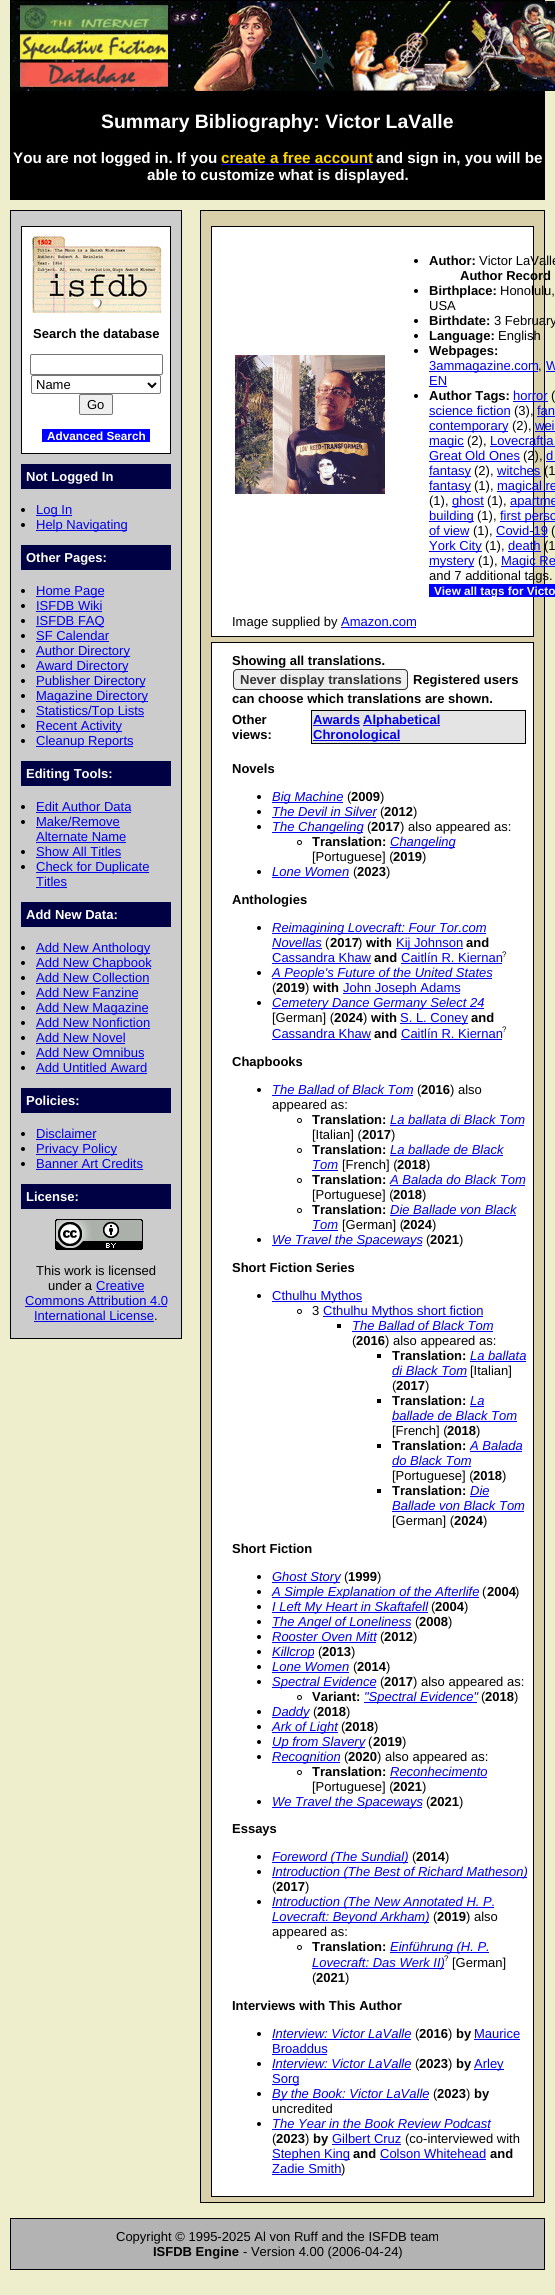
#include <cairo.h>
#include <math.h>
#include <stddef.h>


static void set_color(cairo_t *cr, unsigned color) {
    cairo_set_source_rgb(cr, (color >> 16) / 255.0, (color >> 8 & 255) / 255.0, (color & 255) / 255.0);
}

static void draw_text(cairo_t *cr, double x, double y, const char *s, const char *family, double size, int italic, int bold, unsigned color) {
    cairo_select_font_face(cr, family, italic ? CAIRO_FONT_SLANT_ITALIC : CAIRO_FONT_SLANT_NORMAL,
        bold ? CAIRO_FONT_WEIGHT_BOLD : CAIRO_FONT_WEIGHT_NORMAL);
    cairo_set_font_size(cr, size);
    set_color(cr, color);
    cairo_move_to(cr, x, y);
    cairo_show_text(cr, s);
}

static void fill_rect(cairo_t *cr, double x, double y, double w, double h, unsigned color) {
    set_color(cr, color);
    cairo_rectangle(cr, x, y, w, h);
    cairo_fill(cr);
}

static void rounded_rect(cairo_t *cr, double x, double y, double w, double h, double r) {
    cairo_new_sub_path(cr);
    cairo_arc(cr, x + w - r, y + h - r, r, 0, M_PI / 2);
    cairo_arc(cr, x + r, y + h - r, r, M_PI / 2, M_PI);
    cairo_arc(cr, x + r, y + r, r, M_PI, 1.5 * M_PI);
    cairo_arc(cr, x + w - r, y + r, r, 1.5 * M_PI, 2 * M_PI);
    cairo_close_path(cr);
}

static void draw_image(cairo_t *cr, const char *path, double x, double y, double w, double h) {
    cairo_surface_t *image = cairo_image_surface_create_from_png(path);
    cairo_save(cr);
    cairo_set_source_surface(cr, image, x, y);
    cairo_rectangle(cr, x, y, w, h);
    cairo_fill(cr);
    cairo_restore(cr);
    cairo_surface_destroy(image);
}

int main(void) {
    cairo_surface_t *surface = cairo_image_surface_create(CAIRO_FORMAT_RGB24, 555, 2295);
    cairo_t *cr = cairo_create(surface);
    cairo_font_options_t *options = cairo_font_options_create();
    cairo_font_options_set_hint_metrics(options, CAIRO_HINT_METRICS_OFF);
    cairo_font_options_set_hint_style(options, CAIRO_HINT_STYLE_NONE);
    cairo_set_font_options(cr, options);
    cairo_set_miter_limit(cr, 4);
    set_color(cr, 0xEEEECC);
    cairo_paint(cr);
    cairo_rectangle(cr, 10.5, 0.5, 534, 91);
    set_color(cr, 0x000000);
    cairo_set_line_width(cr, 1);
    cairo_stroke(cr);
    draw_image(cr, "assets/img1.png", 11, 1, 544, 90);
    fill_rect(cr, 10, 92, 535, 108, 0x000000);
    draw_text(cr, 101, 128, "Summary Bibliography: Victor LaValle", "Liberation Sans", 19.4, 0, 1, 0xFFFFFF);
    draw_text(cr, 13, 163, "You are not logged in. If you", "Liberation Sans", 15.2, 0, 1, 0xFFFFFF);
    draw_text(cr, 221, 163, "create a free account", "Liberation Sans", 15.2, 0, 1, 0xFFD700);
    fill_rect(cr, 221, 164, 151, 1, 0x0000EE);
    draw_text(cr, 376, 163, "and sign in, you will be", "Liberation Sans", 15.2, 0, 1, 0xFFFFFF);
    draw_text(cr, 147, 180, "able to customize what is displayed.", "Liberation Sans", 15.2, 0, 1, 0xFFFFFF);
    set_color(cr, 0xCCCCCC);
    cairo_rectangle(cr, 10.5, 210.5, 171, 1128);
    cairo_fill_preserve(cr);
    set_color(cr, 0x000000);
    cairo_stroke(cr);
    set_color(cr, 0xFFFFFF);
    cairo_rectangle(cr, 21.5, 226.5, 149, 227);
    cairo_fill_preserve(cr);
    set_color(cr, 0x000000);
    cairo_stroke(cr);
    draw_image(cr, "assets/img2.png", 32, 236, 130, 77);
    draw_text(cr, 33, 338, "Search the database", "Liberation Sans", 13, 0, 1, 0x000000);
    rounded_rect(cr, 30.5, 354.5, 132, 20, 1.5);
    set_color(cr, 0x767676);
    cairo_stroke(cr);
    rounded_rect(cr, 31.5, 375.5, 129, 18, 1.5);
    cairo_stroke(cr);
    cairo_new_path(cr);
    cairo_move_to(cr, 148, 383);
    cairo_line_to(cr, 152, 387);
    cairo_line_to(cr, 156, 383);
    set_color(cr, 0x000000);
    cairo_set_line_width(cr, 2);
    cairo_stroke(cr);
    draw_text(cr, 36, 389, "Name", "Liberation Sans", 13, 0, 0, 0x000000);
    set_color(cr, 0xEFEFEF);
    rounded_rect(cr, 79.5, 394.5, 33, 20, 1.5);
    cairo_fill_preserve(cr);
    set_color(cr, 0x767676);
    cairo_set_line_width(cr, 1);
    cairo_stroke(cr);
    draw_text(cr, 87, 409, "Go", "Liberation Sans", 13, 0, 0, 0x000000);
    fill_rect(cr, 42, 429, 108, 13, 0x0000FF);
    draw_text(cr, 47, 440, "Advanced Search", "Liberation Sans", 11.75, 0, 1, 0xFFFFFF);
    fill_rect(cr, 21, 464, 150, 25, 0x000044);
    draw_text(cr, 26, 481, "Not Logged In", "Liberation Sans", 13, 0, 1, 0xFFFFFF);
    set_color(cr, 0x000000);
    cairo_new_path(cr);
    cairo_arc(cr, 23, 510, 2, 0, 2 * M_PI);
    cairo_fill(cr);
    fill_rect(cr, 36, 515, 36, 1, 0x0000EE);
    draw_text(cr, 36, 514, "Log In", "Liberation Sans", 13, 0, 0, 0x0000EE);
    set_color(cr, 0x000000);
    cairo_new_path(cr);
    cairo_arc(cr, 23, 525, 2, 0, 2 * M_PI);
    cairo_fill(cr);
    fill_rect(cr, 36, 530, 91, 1, 0x0000EE);
    draw_text(cr, 36, 529, "Help Navigating", "Liberation Sans", 13, 0, 0, 0x0000EE);
    fill_rect(cr, 21, 545, 150, 25, 0x000044);
    draw_text(cr, 26, 562, "Other Pages:", "Liberation Sans", 13, 0, 1, 0xFFFFFF);
    set_color(cr, 0x000000);
    cairo_new_path(cr);
    cairo_arc(cr, 23, 591, 2, 0, 2 * M_PI);
    cairo_fill(cr);
    fill_rect(cr, 36, 596, 68, 1, 0x0000EE);
    draw_text(cr, 36, 595, "Home Page", "Liberation Sans", 13, 0, 0, 0x0000EE);
    set_color(cr, 0x000000);
    cairo_new_path(cr);
    cairo_arc(cr, 23, 606, 2, 0, 2 * M_PI);
    cairo_fill(cr);
    draw_text(cr, 36, 610, "ISFDB Wiki", "Liberation Sans", 13, 0, 0, 0x0000EE);
    fill_rect(cr, 36, 611, 66, 1, 0x0000EE);
    set_color(cr, 0x000000);
    cairo_new_path(cr);
    cairo_arc(cr, 23, 621, 2, 0, 2 * M_PI);
    cairo_fill(cr);
    fill_rect(cr, 36, 626, 68, 1, 0x0000EE);
    draw_text(cr, 36, 625, "ISFDB FAQ", "Liberation Sans", 13, 0, 0, 0x0000EE);
    set_color(cr, 0x000000);
    cairo_new_path(cr);
    cairo_arc(cr, 23, 636, 2, 0, 2 * M_PI);
    cairo_fill(cr);
    draw_text(cr, 36, 640, "SF Calendar", "Liberation Sans", 13, 0, 0, 0x0000EE);
    fill_rect(cr, 36, 641, 73, 1, 0x0000EE);
    set_color(cr, 0x000000);
    cairo_new_path(cr);
    cairo_arc(cr, 23, 651, 2, 0, 2 * M_PI);
    cairo_fill(cr);
    fill_rect(cr, 36, 656, 94, 1, 0x0000EE);
    draw_text(cr, 36, 655, "Author Directory", "Liberation Sans", 13, 0, 0, 0x0000EE);
    set_color(cr, 0x000000);
    cairo_new_path(cr);
    cairo_arc(cr, 23, 666, 2, 0, 2 * M_PI);
    cairo_fill(cr);
    fill_rect(cr, 36, 671, 92, 1, 0x0000EE);
    draw_text(cr, 36, 670, "Award Directory", "Liberation Sans", 13, 0, 0, 0x0000EE);
    set_color(cr, 0x000000);
    cairo_new_path(cr);
    cairo_arc(cr, 23, 681, 2, 0, 2 * M_PI);
    cairo_fill(cr);
    fill_rect(cr, 36, 686, 109, 1, 0x0000EE);
    draw_text(cr, 36, 685, "Publisher Directory", "Liberation Sans", 13, 0, 0, 0x0000EE);
    set_color(cr, 0x000000);
    cairo_new_path(cr);
    cairo_arc(cr, 23, 696, 2, 0, 2 * M_PI);
    cairo_fill(cr);
    fill_rect(cr, 36, 701, 112, 1, 0x0000EE);
    draw_text(cr, 36, 700, "Magazine Directory", "Liberation Sans", 13, 0, 0, 0x0000EE);
    set_color(cr, 0x000000);
    cairo_new_path(cr);
    cairo_arc(cr, 23, 711, 2, 0, 2 * M_PI);
    cairo_fill(cr);
    fill_rect(cr, 36, 716, 108, 1, 0x0000EE);
    draw_text(cr, 36, 715, "Statistics/Top Lists", "Liberation Sans", 13, 0, 0, 0x0000EE);
    set_color(cr, 0x000000);
    cairo_new_path(cr);
    cairo_arc(cr, 23, 726, 2, 0, 2 * M_PI);
    cairo_fill(cr);
    fill_rect(cr, 36, 731, 86, 1, 0x0000EE);
    draw_text(cr, 36, 730, "Recent Activity", "Liberation Sans", 13, 0, 0, 0x0000EE);
    set_color(cr, 0x000000);
    cairo_new_path(cr);
    cairo_arc(cr, 23, 741, 2, 0, 2 * M_PI);
    cairo_fill(cr);
    fill_rect(cr, 36, 746, 97, 1, 0x0000EE);
    draw_text(cr, 36, 745, "Cleanup Reports", "Liberation Sans", 13, 0, 0, 0x0000EE);
    fill_rect(cr, 21, 761, 150, 25, 0x000044);
    draw_text(cr, 26, 778, "Editing Tools:", "Liberation Sans", 13, 0, 1, 0xFFFFFF);
    set_color(cr, 0x000000);
    cairo_new_path(cr);
    cairo_arc(cr, 23, 807, 2, 0, 2 * M_PI);
    cairo_fill(cr);
    draw_text(cr, 36, 811, "Edit Author Data", "Liberation Sans", 13, 0, 0, 0x0000EE);
    fill_rect(cr, 36, 812, 95, 1, 0x0000EE);
    set_color(cr, 0x000000);
    cairo_new_path(cr);
    cairo_arc(cr, 23, 822, 2, 0, 2 * M_PI);
    cairo_fill(cr);
    draw_text(cr, 36, 826, "Make/Remove", "Liberation Sans", 13, 0, 0, 0x0000EE);
    fill_rect(cr, 36, 827, 84, 1, 0x0000EE);
    draw_text(cr, 36, 841, "Alternate Name", "Liberation Sans", 13, 0, 0, 0x0000EE);
    fill_rect(cr, 36, 842, 90, 1, 0x0000EE);
    set_color(cr, 0x000000);
    cairo_new_path(cr);
    cairo_arc(cr, 23, 852, 2, 0, 2 * M_PI);
    cairo_fill(cr);
    draw_text(cr, 36, 856, "Show All Titles", "Liberation Sans", 13, 0, 0, 0x0000EE);
    fill_rect(cr, 36, 857, 85, 1, 0x0000EE);
    set_color(cr, 0x000000);
    cairo_new_path(cr);
    cairo_arc(cr, 23, 867, 2, 0, 2 * M_PI);
    cairo_fill(cr);
    fill_rect(cr, 36, 872, 113, 1, 0x0000EE);
    draw_text(cr, 36, 871, "Check for Duplicate", "Liberation Sans", 13, 0, 0, 0x0000EE);
    draw_text(cr, 36, 886, "Titles", "Liberation Sans", 13, 0, 0, 0x0000EE);
    fill_rect(cr, 36, 887, 31, 1, 0x0000EE);
    fill_rect(cr, 21, 902, 150, 25, 0x000044);
    draw_text(cr, 26, 919, "Add New Data:", "Liberation Sans", 13, 0, 1, 0xFFFFFF);
    set_color(cr, 0x000000);
    cairo_new_path(cr);
    cairo_arc(cr, 23, 948, 2, 0, 2 * M_PI);
    cairo_fill(cr);
    fill_rect(cr, 36, 953, 114, 1, 0x0000EE);
    draw_text(cr, 36, 952, "Add New Anthology", "Liberation Sans", 13, 0, 0, 0x0000EE);
    set_color(cr, 0x000000);
    cairo_new_path(cr);
    cairo_arc(cr, 23, 963, 2, 0, 2 * M_PI);
    cairo_fill(cr);
    fill_rect(cr, 36, 968, 115, 1, 0x0000EE);
    draw_text(cr, 36, 967, "Add New Chapbook", "Liberation Sans", 13, 0, 0, 0x0000EE);
    set_color(cr, 0x000000);
    cairo_new_path(cr);
    cairo_arc(cr, 23, 978, 2, 0, 2 * M_PI);
    cairo_fill(cr);
    draw_text(cr, 36, 982, "Add New Collection", "Liberation Sans", 13, 0, 0, 0x0000EE);
    fill_rect(cr, 36, 983, 113, 1, 0x0000EE);
    set_color(cr, 0x000000);
    cairo_new_path(cr);
    cairo_arc(cr, 23, 993, 2, 0, 2 * M_PI);
    cairo_fill(cr);
    draw_text(cr, 36, 997, "Add New Fanzine", "Liberation Sans", 13, 0, 0, 0x0000EE);
    fill_rect(cr, 36, 998, 102, 1, 0x0000EE);
    set_color(cr, 0x000000);
    cairo_new_path(cr);
    cairo_arc(cr, 23, 1008, 2, 0, 2 * M_PI);
    cairo_fill(cr);
    fill_rect(cr, 36, 1013, 112, 1, 0x0000EE);
    draw_text(cr, 36, 1012, "Add New Magazine", "Liberation Sans", 13, 0, 0, 0x0000EE);
    set_color(cr, 0x000000);
    cairo_new_path(cr);
    cairo_arc(cr, 23, 1023, 2, 0, 2 * M_PI);
    cairo_fill(cr);
    draw_text(cr, 36, 1027, "Add New Nonfiction", "Liberation Sans", 13, 0, 0, 0x0000EE);
    fill_rect(cr, 36, 1028, 114, 1, 0x0000EE);
    set_color(cr, 0x000000);
    cairo_new_path(cr);
    cairo_arc(cr, 23, 1038, 2, 0, 2 * M_PI);
    cairo_fill(cr);
    draw_text(cr, 36, 1042, "Add New Novel", "Liberation Sans", 13, 0, 0, 0x0000EE);
    fill_rect(cr, 36, 1043, 89, 1, 0x0000EE);
    set_color(cr, 0x000000);
    cairo_new_path(cr);
    cairo_arc(cr, 23, 1053, 2, 0, 2 * M_PI);
    cairo_fill(cr);
    draw_text(cr, 36, 1057, "Add New Omnibus", "Liberation Sans", 13, 0, 0, 0x0000EE);
    fill_rect(cr, 36, 1058, 108, 1, 0x0000EE);
    set_color(cr, 0x000000);
    cairo_new_path(cr);
    cairo_arc(cr, 23, 1068, 2, 0, 2 * M_PI);
    cairo_fill(cr);
    draw_text(cr, 36, 1072, "Add Untitled Award", "Liberation Sans", 13, 0, 0, 0x0000EE);
    fill_rect(cr, 36, 1073, 111, 1, 0x0000EE);
    fill_rect(cr, 21, 1088, 150, 25, 0x000044);
    draw_text(cr, 26, 1105, "Policies:", "Liberation Sans", 13, 0, 1, 0xFFFFFF);
    set_color(cr, 0x000000);
    cairo_new_path(cr);
    cairo_arc(cr, 23, 1134, 2, 0, 2 * M_PI);
    cairo_fill(cr);
    draw_text(cr, 36, 1138, "Disclaimer", "Liberation Sans", 13, 0, 0, 0x0000EE);
    fill_rect(cr, 36, 1139, 60, 1, 0x0000EE);
    set_color(cr, 0x000000);
    cairo_new_path(cr);
    cairo_arc(cr, 23, 1149, 2, 0, 2 * M_PI);
    cairo_fill(cr);
    fill_rect(cr, 36, 1154, 81, 1, 0x0000EE);
    draw_text(cr, 36, 1153, "Privacy Policy", "Liberation Sans", 13, 0, 0, 0x0000EE);
    set_color(cr, 0x000000);
    cairo_new_path(cr);
    cairo_arc(cr, 23, 1164, 2, 0, 2 * M_PI);
    cairo_fill(cr);
    draw_text(cr, 36, 1168, "Banner Art Credits", "Liberation Sans", 13, 0, 0, 0x0000EE);
    fill_rect(cr, 36, 1169, 107, 1, 0x0000EE);
    fill_rect(cr, 21, 1184, 150, 25, 0x000044);
    draw_text(cr, 26, 1201, "License:", "Liberation Sans", 13, 0, 1, 0xFFFFFF);
    draw_image(cr, "assets/img3.png", 55, 1219, 88, 31);
    draw_text(cr, 36, 1275, "This work is licensed", "Liberation Sans", 13, 0, 0, 0x000000);
    draw_text(cr, 48, 1290, "under a", "Liberation Sans", 13, 0, 0, 0x000000);
    draw_text(cr, 96, 1290, "Creative", "Liberation Sans", 13, 0, 0, 0x0000EE);
    fill_rect(cr, 96, 1291, 48, 1, 0x0000EE);
    draw_text(cr, 25, 1305, "Commons Attribution 4.0", "Liberation Sans", 13, 0, 0, 0x0000EE);
    fill_rect(cr, 25, 1306, 142, 1, 0x0000EE);
    draw_text(cr, 34, 1320, "International License", "Liberation Sans", 13, 0, 0, 0x0000EE);
    fill_rect(cr, 34, 1321, 120, 1, 0x0000EE);
    draw_text(cr, 154, 1320, ".", "Liberation Sans", 13, 0, 0, 0x000000);
    set_color(cr, 0xD9D0A9);
    cairo_rectangle(cr, 200.5, 210.5, 344, 1992);
    cairo_fill_preserve(cr);
    set_color(cr, 0x000000);
    cairo_stroke(cr);
    set_color(cr, 0xFFFFFF);
    cairo_rectangle(cr, 211.5, 226.5, 322, 410);
    cairo_fill_preserve(cr);
    set_color(cr, 0x000000);
    cairo_stroke(cr);
    draw_image(cr, "assets/img4.png", 235, 355, 150, 139);
    cairo_arc(cr, 416, 261, 2, 0, 2 * M_PI);
    cairo_fill(cr);
    draw_text(cr, 429, 265, "Author:", "Liberation Sans", 13, 0, 1, 0x000000);
    draw_text(cr, 479, 265, "Victor LaValle", "Liberation Sans", 13, 0, 0, 0x000000);
    draw_text(cr, 460, 280, "Author Record", "Liberation Sans", 13, 0, 1, 0x000000);
    cairo_new_path(cr);
    cairo_arc(cr, 416, 291, 2, 0, 2 * M_PI);
    cairo_fill(cr);
    draw_text(cr, 429, 295, "Birthplace:", "Liberation Sans", 13, 0, 1, 0x000000);
    draw_text(cr, 500, 295, "Honolulu,", "Liberation Sans", 13, 0, 0, 0x000000);
    draw_text(cr, 429, 310, "USA", "Liberation Sans", 13, 0, 0, 0x000000);
    cairo_new_path(cr);
    cairo_arc(cr, 416, 321, 2, 0, 2 * M_PI);
    cairo_fill(cr);
    draw_text(cr, 429, 325, "Birthdate:", "Liberation Sans", 13, 0, 1, 0x000000);
    draw_text(cr, 494, 325, "3 February", "Liberation Sans", 13, 0, 0, 0x000000);
    cairo_new_path(cr);
    cairo_arc(cr, 416, 336, 2, 0, 2 * M_PI);
    cairo_fill(cr);
    draw_text(cr, 429, 340, "Language:", "Liberation Sans", 13, 0, 1, 0x000000);
    draw_text(cr, 498, 340, "English", "Liberation Sans", 13, 0, 0, 0x000000);
    cairo_new_path(cr);
    cairo_arc(cr, 416, 351, 2, 0, 2 * M_PI);
    cairo_fill(cr);
    draw_text(cr, 429, 355, "Webpages:", "Liberation Sans", 13, 0, 1, 0x000000);
    fill_rect(cr, 429, 371, 109, 1, 0x0000EE);
    draw_text(cr, 429, 370, "3ammagazine.com", "Liberation Sans", 13, 0, 0, 0x0000EE);
    draw_text(cr, 538, 370, ",", "Liberation Sans", 13, 0, 0, 0x000000);
    draw_text(cr, 546, 370, "W", "Liberation Sans", 13, 0, 0, 0x0000EE);
    fill_rect(cr, 546, 371, 9, 1, 0x0000EE);
    draw_text(cr, 429, 385, "EN", "Liberation Sans", 13, 0, 0, 0x0000EE);
    fill_rect(cr, 429, 386, 18, 1, 0x0000EE);
    set_color(cr, 0x000000);
    cairo_new_path(cr);
    cairo_arc(cr, 416, 396, 2, 0, 2 * M_PI);
    cairo_fill(cr);
    draw_text(cr, 429, 400, "Author Tags:", "Liberation Sans", 13, 0, 1, 0x000000);
    draw_text(cr, 513, 400, "horror", "Liberation Sans", 13, 0, 0, 0x0000EE);
    fill_rect(cr, 513, 401, 35, 1, 0x0000EE);
    draw_text(cr, 551, 400, "(", "Liberation Sans", 13, 0, 0, 0x000000);
    draw_text(cr, 429, 415, "science fiction", "Liberation Sans", 13, 0, 0, 0x0000EE);
    fill_rect(cr, 429, 416, 81, 1, 0x0000EE);
    draw_text(cr, 514, 415, "(3),", "Liberation Sans", 13, 0, 0, 0x000000);
    draw_text(cr, 537, 415, "fan", "Liberation Sans", 13, 0, 0, 0x0000EE);
    fill_rect(cr, 537, 416, 18, 1, 0x0000EE);
    fill_rect(cr, 429, 431, 79, 1, 0x0000EE);
    draw_text(cr, 429, 430, "contemporary", "Liberation Sans", 13, 0, 0, 0x0000EE);
    draw_text(cr, 512, 430, "(2),", "Liberation Sans", 13, 0, 0, 0x000000);
    draw_text(cr, 535, 430, "wei", "Liberation Sans", 13, 0, 0, 0x0000EE);
    fill_rect(cr, 535, 431, 20, 1, 0x0000EE);
    fill_rect(cr, 429, 446, 35, 1, 0x0000EE);
    draw_text(cr, 429, 445, "magic", "Liberation Sans", 13, 0, 0, 0x0000EE);
    draw_text(cr, 467, 445, "(2),", "Liberation Sans", 13, 0, 0, 0x000000);
    draw_text(cr, 490, 445, "Lovecraftia", "Liberation Sans", 13, 0, 0, 0x0000EE);
    fill_rect(cr, 490, 446, 65, 1, 0x0000EE);
    draw_text(cr, 429, 460, "Great Old Ones", "Liberation Sans", 13, 0, 0, 0x0000EE);
    fill_rect(cr, 429, 461, 91, 1, 0x0000EE);
    draw_text(cr, 523, 460, "(2),", "Liberation Sans", 13, 0, 0, 0x000000);
    draw_text(cr, 546, 460, "d", "Liberation Sans", 13, 0, 0, 0x0000EE);
    fill_rect(cr, 546, 461, 9, 1, 0x0000EE);
    fill_rect(cr, 429, 476, 42, 1, 0x0000EE);
    draw_text(cr, 429, 475, "fantasy", "Liberation Sans", 13, 0, 0, 0x0000EE);
    draw_text(cr, 474, 475, "(2),", "Liberation Sans", 13, 0, 0, 0x000000);
    draw_text(cr, 497, 475, "witches", "Liberation Sans", 13, 0, 0, 0x0000EE);
    fill_rect(cr, 497, 476, 44, 1, 0x0000EE);
    draw_text(cr, 544, 475, "(1", "Liberation Sans", 13, 0, 0, 0x000000);
    fill_rect(cr, 429, 491, 42, 1, 0x0000EE);
    draw_text(cr, 429, 490, "fantasy", "Liberation Sans", 13, 0, 0, 0x0000EE);
    draw_text(cr, 474, 490, "(1),", "Liberation Sans", 13, 0, 0, 0x000000);
    fill_rect(cr, 497, 491, 58, 1, 0x0000EE);
    draw_text(cr, 497, 490, "magical re", "Liberation Sans", 13, 0, 0, 0x0000EE);
    draw_text(cr, 429, 505, "(1),", "Liberation Sans", 13, 0, 0, 0x000000);
    fill_rect(cr, 452, 506, 32, 1, 0x0000EE);
    draw_text(cr, 452, 505, "ghost", "Liberation Sans", 13, 0, 0, 0x0000EE);
    draw_text(cr, 487, 505, "(1),", "Liberation Sans", 13, 0, 0, 0x000000);
    fill_rect(cr, 510, 506, 45, 1, 0x0000EE);
    draw_text(cr, 510, 505, "apartme", "Liberation Sans", 13, 0, 0, 0x0000EE);
    fill_rect(cr, 429, 521, 45, 1, 0x0000EE);
    draw_text(cr, 429, 520, "building", "Liberation Sans", 13, 0, 0, 0x0000EE);
    draw_text(cr, 477, 520, "(1),", "Liberation Sans", 13, 0, 0, 0x000000);
    fill_rect(cr, 500, 521, 55, 1, 0x0000EE);
    draw_text(cr, 500, 520, "first perso", "Liberation Sans", 13, 0, 0, 0x0000EE);
    draw_text(cr, 429, 535, "of view", "Liberation Sans", 13, 0, 0, 0x0000EE);
    fill_rect(cr, 429, 536, 40, 1, 0x0000EE);
    draw_text(cr, 473, 535, "(1),", "Liberation Sans", 13, 0, 0, 0x000000);
    draw_text(cr, 496, 535, "Covid-19", "Liberation Sans", 13, 0, 0, 0x0000EE);
    fill_rect(cr, 496, 536, 52, 1, 0x0000EE);
    draw_text(cr, 551, 535, "(", "Liberation Sans", 13, 0, 0, 0x000000);
    fill_rect(cr, 429, 551, 53, 1, 0x0000EE);
    draw_text(cr, 429, 550, "York City", "Liberation Sans", 13, 0, 0, 0x0000EE);
    draw_text(cr, 485, 550, "(1),", "Liberation Sans", 13, 0, 0, 0x000000);
    draw_text(cr, 508, 550, "death", "Liberation Sans", 13, 0, 0, 0x0000EE);
    fill_rect(cr, 508, 551, 33, 1, 0x0000EE);
    draw_text(cr, 544, 550, "(1", "Liberation Sans", 13, 0, 0, 0x000000);
    fill_rect(cr, 429, 566, 45, 1, 0x0000EE);
    draw_text(cr, 429, 565, "mystery", "Liberation Sans", 13, 0, 0, 0x0000EE);
    draw_text(cr, 478, 565, "(1),", "Liberation Sans", 13, 0, 0, 0x000000);
    fill_rect(cr, 501, 566, 54, 1, 0x0000EE);
    draw_text(cr, 501, 565, "Magic Re", "Liberation Sans", 13, 0, 0, 0x0000EE);
    draw_text(cr, 429, 580, "and 7 additional tags.", "Liberation Sans", 13, 0, 0, 0x000000);
    fill_rect(cr, 429, 584, 126, 13, 0x0000FF);
    draw_text(cr, 434, 595, "View all tags for Victo", "Liberation Sans", 11.75, 0, 1, 0xFFFFFF);
    draw_text(cr, 232, 626, "Image supplied by", "Liberation Sans", 13, 0, 0, 0x000000);
    draw_text(cr, 341, 626, "Amazon.com", "Liberation Sans", 13, 0, 0, 0x0000EE);
    fill_rect(cr, 341, 627, 75, 1, 0x0000EE);
    set_color(cr, 0xFFFFFF);
    cairo_rectangle(cr, 211.5, 642.5, 322, 1554);
    cairo_fill_preserve(cr);
    set_color(cr, 0x000000);
    cairo_stroke(cr);
    draw_text(cr, 232, 665, "Showing all translations.", "Liberation Sans", 13, 0, 1, 0x000000);
    set_color(cr, 0xEEEEEE);
    rounded_rect(cr, 233.5, 669.5, 174, 20, 3.5);
    cairo_fill_preserve(cr);
    set_color(cr, 0x333333);
    cairo_stroke(cr);
    draw_text(cr, 240, 684, "Never display translations", "Liberation Sans", 13, 0, 1, 0x333333);
    draw_text(cr, 413, 684, "Registered users", "Liberation Sans", 13, 0, 1, 0x000000);
    draw_text(cr, 232, 703, "can choose which translations are shown.", "Liberation Sans", 13, 0, 1, 0x000000);
    draw_text(cr, 232, 724, "Other", "Liberation Sans", 13, 0, 1, 0x000000);
    draw_text(cr, 232, 739, "views:", "Liberation Sans", 13, 0, 1, 0x000000);
    set_color(cr, 0xE4E4E4);
    cairo_rectangle(cr, 311.5, 710.5, 214, 33);
    cairo_fill_preserve(cr);
    set_color(cr, 0x000000);
    cairo_stroke(cr);
    draw_text(cr, 313, 724, "Awards", "Liberation Sans", 13, 0, 1, 0x0000EE);
    fill_rect(cr, 313, 725, 47, 1, 0x0000EE);
    fill_rect(cr, 363, 725, 77, 1, 0x0000EE);
    draw_text(cr, 363, 724, "Alphabetical", "Liberation Sans", 13, 0, 1, 0x0000EE);
    fill_rect(cr, 313, 740, 87, 1, 0x0000EE);
    draw_text(cr, 313, 739, "Chronological", "Liberation Sans", 13, 0, 1, 0x0000EE);
    draw_text(cr, 232, 773, "Novels", "Liberation Sans", 13, 0, 1, 0x000000);
    cairo_new_path(cr);
    cairo_arc(cr, 259, 797, 2, 0, 2 * M_PI);
    cairo_fill(cr);
    fill_rect(cr, 272, 802, 71, 1, 0x0000EE);
    draw_text(cr, 272, 801, "Big Machine", "Liberation Sans", 13, 1, 0, 0x0000EE);
    draw_text(cr, 347, 801, "(", "Liberation Sans", 13, 0, 0, 0x000000);
    draw_text(cr, 351, 801, "2009", "Liberation Sans", 13, 0, 1, 0x000000);
    draw_text(cr, 380, 801, ")", "Liberation Sans", 13, 0, 0, 0x000000);
    cairo_new_path(cr);
    cairo_arc(cr, 259, 812, 2, 0, 2 * M_PI);
    cairo_fill(cr);
    draw_text(cr, 272, 816, "The Devil in Silver", "Liberation Sans", 13, 1, 0, 0x0000EE);
    fill_rect(cr, 272, 817, 104, 1, 0x0000EE);
    draw_text(cr, 380, 816, "(", "Liberation Sans", 13, 0, 0, 0x000000);
    draw_text(cr, 384, 816, "2012", "Liberation Sans", 13, 0, 1, 0x000000);
    draw_text(cr, 413, 816, ")", "Liberation Sans", 13, 0, 0, 0x000000);
    cairo_new_path(cr);
    cairo_arc(cr, 259, 827, 2, 0, 2 * M_PI);
    cairo_fill(cr);
    fill_rect(cr, 272, 832, 91, 1, 0x0000EE);
    draw_text(cr, 272, 831, "The Changeling", "Liberation Sans", 13, 1, 0, 0x0000EE);
    draw_text(cr, 367, 831, "(", "Liberation Sans", 13, 0, 0, 0x000000);
    draw_text(cr, 371, 831, "2017", "Liberation Sans", 13, 0, 1, 0x000000);
    draw_text(cr, 400, 831, ") also appeared as:", "Liberation Sans", 13, 0, 0, 0x000000);
    cairo_new_path(cr);
    cairo_arc(cr, 299.5, 842.5, 2, 0, 2 * M_PI);
    cairo_stroke(cr);
    draw_text(cr, 312, 846, "Translation:", "Liberation Sans", 13, 0, 1, 0x000000);
    fill_rect(cr, 390, 847, 65, 1, 0x0000EE);
    draw_text(cr, 390, 846, "Changeling", "Liberation Sans", 13, 1, 0, 0x0000EE);
    draw_text(cr, 312, 861, "[Portuguese] (", "Liberation Sans", 13, 0, 0, 0x000000);
    draw_text(cr, 393, 861, "2019", "Liberation Sans", 13, 0, 1, 0x000000);
    draw_text(cr, 422, 861, ")", "Liberation Sans", 13, 0, 0, 0x000000);
    cairo_new_path(cr);
    cairo_arc(cr, 259, 872, 2, 0, 2 * M_PI);
    cairo_fill(cr);
    draw_text(cr, 272, 876, "Lone Women", "Liberation Sans", 13, 1, 0, 0x0000EE);
    fill_rect(cr, 272, 877, 77, 1, 0x0000EE);
    draw_text(cr, 353, 876, "(", "Liberation Sans", 13, 0, 0, 0x000000);
    draw_text(cr, 357, 876, "2023", "Liberation Sans", 13, 0, 1, 0x000000);
    draw_text(cr, 386, 876, ")", "Liberation Sans", 13, 0, 0, 0x000000);
    draw_text(cr, 232, 904, "Anthologies", "Liberation Sans", 13, 0, 1, 0x000000);
    cairo_new_path(cr);
    cairo_arc(cr, 259, 928, 2, 0, 2 * M_PI);
    cairo_fill(cr);
    fill_rect(cr, 272, 933, 214, 1, 0x0000EE);
    draw_text(cr, 272, 932, "Reimagining Lovecraft: Four Tor.com", "Liberation Sans", 13, 1, 0, 0x0000EE);
    draw_text(cr, 272, 947, "Novellas", "Liberation Sans", 13, 1, 0, 0x0000EE);
    fill_rect(cr, 272, 948, 50, 1, 0x0000EE);
    draw_text(cr, 325, 947, "(", "Liberation Sans", 13, 0, 0, 0x000000);
    draw_text(cr, 330, 947, "2017", "Liberation Sans", 13, 0, 1, 0x000000);
    draw_text(cr, 358, 947, ")", "Liberation Sans", 13, 0, 0, 0x000000);
    draw_text(cr, 366, 947, "with", "Liberation Sans", 13, 0, 1, 0x000000);
    fill_rect(cr, 396, 948, 67, 1, 0x0000EE);
    draw_text(cr, 396, 947, "Kij Johnson", "Liberation Sans", 13, 0, 0, 0x0000EE);
    draw_text(cr, 466, 947, "and", "Liberation Sans", 13, 0, 1, 0x000000);
    draw_text(cr, 272, 962, "Cassandra Khaw", "Liberation Sans", 13, 0, 0, 0x0000EE);
    fill_rect(cr, 272, 963, 99, 1, 0x0000EE);
    draw_text(cr, 374, 962, "and", "Liberation Sans", 13, 0, 1, 0x000000);
    draw_text(cr, 401, 962, "Caitlín R. Kiernan", "Liberation Sans", 13, 0, 0, 0x0000EE);
    fill_rect(cr, 401, 963, 101, 1, 0x0000EE);
    draw_text(cr, 502, 957, "?", "Liberation Sans", 8, 0, 0, 0x000000);
    cairo_new_path(cr);
    cairo_arc(cr, 259, 973, 2, 0, 2 * M_PI);
    cairo_fill(cr);
    fill_rect(cr, 272, 978, 220, 1, 0x0000EE);
    draw_text(cr, 272, 977, "A People's Future of the United States", "Liberation Sans", 13, 1, 0, 0x0000EE);
    draw_text(cr, 272, 992, "(", "Liberation Sans", 13, 0, 0, 0x000000);
    draw_text(cr, 276, 992, "2019", "Liberation Sans", 13, 0, 1, 0x000000);
    draw_text(cr, 305, 992, ")", "Liberation Sans", 13, 0, 0, 0x000000);
    draw_text(cr, 313, 992, "with", "Liberation Sans", 13, 0, 1, 0x000000);
    fill_rect(cr, 343, 993, 117, 1, 0x0000EE);
    draw_text(cr, 343, 992, "John Joseph Adams", "Liberation Sans", 13, 0, 0, 0x0000EE);
    set_color(cr, 0x000000);
    cairo_new_path(cr);
    cairo_arc(cr, 259, 1003, 2, 0, 2 * M_PI);
    cairo_fill(cr);
    fill_rect(cr, 272, 1008, 212, 1, 0x0000EE);
    draw_text(cr, 272, 1007, "Cemetery Dance Germany Select 24", "Liberation Sans", 13, 1, 0, 0x0000EE);
    draw_text(cr, 272, 1022, "[German] (", "Liberation Sans", 13, 0, 0, 0x000000);
    draw_text(cr, 334, 1022, "2024", "Liberation Sans", 13, 0, 1, 0x000000);
    draw_text(cr, 363, 1022, ")", "Liberation Sans", 13, 0, 0, 0x000000);
    draw_text(cr, 371, 1022, "with", "Liberation Sans", 13, 0, 1, 0x000000);
    fill_rect(cr, 400, 1023, 68, 1, 0x0000EE);
    draw_text(cr, 400, 1022, "S. L. Coney", "Liberation Sans", 13, 0, 0, 0x0000EE);
    draw_text(cr, 471, 1022, "and", "Liberation Sans", 13, 0, 1, 0x000000);
    draw_text(cr, 272, 1038, "Cassandra Khaw", "Liberation Sans", 13, 0, 0, 0x0000EE);
    fill_rect(cr, 272, 1039, 99, 1, 0x0000EE);
    draw_text(cr, 374, 1038, "and", "Liberation Sans", 13, 0, 1, 0x000000);
    draw_text(cr, 401, 1038, "Caitlín R. Kiernan", "Liberation Sans", 13, 0, 0, 0x0000EE);
    fill_rect(cr, 401, 1039, 101, 1, 0x0000EE);
    draw_text(cr, 502, 1032, "?", "Liberation Sans", 8, 0, 0, 0x000000);
    draw_text(cr, 232, 1066, "Chapbooks", "Liberation Sans", 13, 0, 1, 0x000000);
    cairo_new_path(cr);
    cairo_arc(cr, 259, 1090, 2, 0, 2 * M_PI);
    cairo_fill(cr);
    draw_text(cr, 272, 1094, "The Ballad of Black Tom", "Liberation Sans", 13, 1, 0, 0x0000EE);
    fill_rect(cr, 272, 1095, 141, 1, 0x0000EE);
    draw_text(cr, 417, 1094, "(", "Liberation Sans", 13, 0, 0, 0x000000);
    draw_text(cr, 421, 1094, "2016", "Liberation Sans", 13, 0, 1, 0x000000);
    draw_text(cr, 450, 1094, ") also", "Liberation Sans", 13, 0, 0, 0x000000);
    draw_text(cr, 272, 1109, "appeared as:", "Liberation Sans", 13, 0, 0, 0x000000);
    cairo_new_path(cr);
    cairo_arc(cr, 299.5, 1120.5, 2, 0, 2 * M_PI);
    cairo_stroke(cr);
    draw_text(cr, 312, 1124, "Translation:", "Liberation Sans", 13, 0, 1, 0x000000);
    draw_text(cr, 390, 1124, "La ballata di Black Tom", "Liberation Sans", 13, 1, 0, 0x0000EE);
    fill_rect(cr, 390, 1125, 134, 1, 0x0000EE);
    draw_text(cr, 312, 1139, "[Italian] (", "Liberation Sans", 13, 0, 0, 0x000000);
    draw_text(cr, 362, 1139, "2017", "Liberation Sans", 13, 0, 1, 0x000000);
    draw_text(cr, 391, 1139, ")", "Liberation Sans", 13, 0, 0, 0x000000);
    cairo_new_path(cr);
    cairo_arc(cr, 299.5, 1150.5, 2, 0, 2 * M_PI);
    cairo_stroke(cr);
    draw_text(cr, 312, 1154, "Translation:", "Liberation Sans", 13, 0, 1, 0x000000);
    draw_text(cr, 390, 1154, "La ballade de Black", "Liberation Sans", 13, 1, 0, 0x0000EE);
    fill_rect(cr, 390, 1155, 113, 1, 0x0000EE);
    draw_text(cr, 312, 1169, "Tom", "Liberation Sans", 13, 1, 0, 0x0000EE);
    fill_rect(cr, 312, 1170, 26, 1, 0x0000EE);
    draw_text(cr, 342, 1169, "[French] (", "Liberation Sans", 13, 0, 0, 0x000000);
    draw_text(cr, 397, 1169, "2018", "Liberation Sans", 13, 0, 1, 0x000000);
    draw_text(cr, 426, 1169, ")", "Liberation Sans", 13, 0, 0, 0x000000);
    cairo_new_path(cr);
    cairo_arc(cr, 299.5, 1180.5, 2, 0, 2 * M_PI);
    cairo_stroke(cr);
    draw_text(cr, 312, 1184, "Translation:", "Liberation Sans", 13, 0, 1, 0x000000);
    draw_text(cr, 390, 1184, "A Balada do Black Tom", "Liberation Sans", 13, 1, 0, 0x0000EE);
    fill_rect(cr, 390, 1185, 135, 1, 0x0000EE);
    draw_text(cr, 312, 1199, "[Portuguese] (", "Liberation Sans", 13, 0, 0, 0x000000);
    draw_text(cr, 393, 1199, "2018", "Liberation Sans", 13, 0, 1, 0x000000);
    draw_text(cr, 422, 1199, ")", "Liberation Sans", 13, 0, 0, 0x000000);
    cairo_new_path(cr);
    cairo_arc(cr, 299.5, 1210.5, 2, 0, 2 * M_PI);
    cairo_stroke(cr);
    draw_text(cr, 312, 1214, "Translation:", "Liberation Sans", 13, 0, 1, 0x000000);
    draw_text(cr, 390, 1214, "Die Ballade von Black", "Liberation Sans", 13, 1, 0, 0x0000EE);
    fill_rect(cr, 390, 1215, 126, 1, 0x0000EE);
    draw_text(cr, 312, 1229, "Tom", "Liberation Sans", 13, 1, 0, 0x0000EE);
    fill_rect(cr, 312, 1230, 26, 1, 0x0000EE);
    draw_text(cr, 342, 1229, "[German] (", "Liberation Sans", 13, 0, 0, 0x000000);
    draw_text(cr, 403, 1229, "2024", "Liberation Sans", 13, 0, 1, 0x000000);
    draw_text(cr, 432, 1229, ")", "Liberation Sans", 13, 0, 0, 0x000000);
    cairo_new_path(cr);
    cairo_arc(cr, 259, 1240, 2, 0, 2 * M_PI);
    cairo_fill(cr);
    fill_rect(cr, 272, 1245, 150, 1, 0x0000EE);
    draw_text(cr, 272, 1244, "We Travel the Spaceways", "Liberation Sans", 13, 1, 0, 0x0000EE);
    draw_text(cr, 426, 1244, "(", "Liberation Sans", 13, 0, 0, 0x000000);
    draw_text(cr, 430, 1244, "2021", "Liberation Sans", 13, 0, 1, 0x000000);
    draw_text(cr, 459, 1244, ")", "Liberation Sans", 13, 0, 0, 0x000000);
    draw_text(cr, 232, 1272, "Short Fiction Series", "Liberation Sans", 13, 0, 1, 0x000000);
    cairo_new_path(cr);
    cairo_arc(cr, 259, 1296, 2, 0, 2 * M_PI);
    cairo_fill(cr);
    fill_rect(cr, 272, 1301, 90, 1, 0x0000EE);
    draw_text(cr, 272, 1300, "Cthulhu Mythos", "Liberation Sans", 13, 0, 0, 0x0000EE);
    cairo_new_path(cr);
    cairo_arc(cr, 299.5, 1311.5, 2, 0, 2 * M_PI);
    set_color(cr, 0x000000);
    cairo_stroke(cr);
    draw_text(cr, 312, 1315, "3", "Liberation Sans", 13, 0, 0, 0x000000);
    fill_rect(cr, 323, 1316, 160, 1, 0x0000EE);
    draw_text(cr, 323, 1315, "Cthulhu Mythos short fiction", "Liberation Sans", 13, 0, 0, 0x0000EE);
    fill_rect(cr, 337, 1324, 4, 4, 0x000000);
    draw_text(cr, 352, 1330, "The Ballad of Black Tom", "Liberation Sans", 13, 1, 0, 0x0000EE);
    fill_rect(cr, 352, 1331, 141, 1, 0x0000EE);
    draw_text(cr, 352, 1345, "(", "Liberation Sans", 13, 0, 0, 0x000000);
    draw_text(cr, 356, 1345, "2016", "Liberation Sans", 13, 0, 1, 0x000000);
    draw_text(cr, 385, 1345, ") also appeared as:", "Liberation Sans", 13, 0, 0, 0x000000);
    fill_rect(cr, 377, 1354, 4, 4, 0x000000);
    draw_text(cr, 392, 1360, "Translation:", "Liberation Sans", 13, 0, 1, 0x000000);
    draw_text(cr, 470, 1360, "La ballata", "Liberation Sans", 13, 1, 0, 0x0000EE);
    fill_rect(cr, 470, 1361, 56, 1, 0x0000EE);
    draw_text(cr, 392, 1375, "di Black Tom", "Liberation Sans", 13, 1, 0, 0x0000EE);
    fill_rect(cr, 392, 1376, 75, 1, 0x0000EE);
    draw_text(cr, 470, 1375, "[Italian]", "Liberation Sans", 13, 0, 0, 0x000000);
    draw_text(cr, 392, 1390, "(", "Liberation Sans", 13, 0, 0, 0x000000);
    draw_text(cr, 396, 1390, "2017", "Liberation Sans", 13, 0, 1, 0x000000);
    draw_text(cr, 425, 1390, ")", "Liberation Sans", 13, 0, 0, 0x000000);
    fill_rect(cr, 377, 1399, 4, 4, 0x000000);
    draw_text(cr, 392, 1405, "Translation:", "Liberation Sans", 13, 0, 1, 0x000000);
    draw_text(cr, 470, 1405, "La", "Liberation Sans", 13, 1, 0, 0x0000EE);
    fill_rect(cr, 470, 1406, 14, 1, 0x0000EE);
    draw_text(cr, 392, 1420, "ballade de Black Tom", "Liberation Sans", 13, 1, 0, 0x0000EE);
    fill_rect(cr, 392, 1421, 125, 1, 0x0000EE);
    draw_text(cr, 392, 1435, "[French] (", "Liberation Sans", 13, 0, 0, 0x000000);
    draw_text(cr, 447, 1435, "2018", "Liberation Sans", 13, 0, 1, 0x000000);
    draw_text(cr, 476, 1435, ")", "Liberation Sans", 13, 0, 0, 0x000000);
    fill_rect(cr, 377, 1444, 4, 4, 0x000000);
    draw_text(cr, 392, 1450, "Translation:", "Liberation Sans", 13, 0, 1, 0x000000);
    draw_text(cr, 470, 1450, "A Balada", "Liberation Sans", 13, 1, 0, 0x0000EE);
    fill_rect(cr, 470, 1451, 52, 1, 0x0000EE);
    draw_text(cr, 392, 1465, "do Black Tom", "Liberation Sans", 13, 1, 0, 0x0000EE);
    fill_rect(cr, 392, 1466, 79, 1, 0x0000EE);
    draw_text(cr, 392, 1480, "[Portuguese] (", "Liberation Sans", 13, 0, 0, 0x000000);
    draw_text(cr, 473, 1480, "2018", "Liberation Sans", 13, 0, 1, 0x000000);
    draw_text(cr, 502, 1480, ")", "Liberation Sans", 13, 0, 0, 0x000000);
    fill_rect(cr, 377, 1489, 4, 4, 0x000000);
    draw_text(cr, 392, 1495, "Translation:", "Liberation Sans", 13, 0, 1, 0x000000);
    draw_text(cr, 470, 1495, "Die", "Liberation Sans", 13, 1, 0, 0x0000EE);
    fill_rect(cr, 470, 1496, 19, 1, 0x0000EE);
    draw_text(cr, 392, 1510, "Ballade von Black Tom", "Liberation Sans", 13, 1, 0, 0x0000EE);
    fill_rect(cr, 392, 1511, 132, 1, 0x0000EE);
    draw_text(cr, 392, 1525, "[German] (", "Liberation Sans", 13, 0, 0, 0x000000);
    draw_text(cr, 454, 1525, "2024", "Liberation Sans", 13, 0, 1, 0x000000);
    draw_text(cr, 483, 1525, ")", "Liberation Sans", 13, 0, 0, 0x000000);
    draw_text(cr, 232, 1553, "Short Fiction", "Liberation Sans", 13, 0, 1, 0x000000);
    cairo_new_path(cr);
    cairo_arc(cr, 259, 1577, 2, 0, 2 * M_PI);
    cairo_fill(cr);
    fill_rect(cr, 272, 1582, 68, 1, 0x0000EE);
    draw_text(cr, 272, 1581, "Ghost Story", "Liberation Sans", 13, 1, 0, 0x0000EE);
    draw_text(cr, 344, 1581, "(", "Liberation Sans", 13, 0, 0, 0x000000);
    draw_text(cr, 348, 1581, "1999", "Liberation Sans", 13, 0, 1, 0x000000);
    draw_text(cr, 377, 1581, ")", "Liberation Sans", 13, 0, 0, 0x000000);
    cairo_new_path(cr);
    cairo_arc(cr, 259, 1592, 2, 0, 2 * M_PI);
    cairo_fill(cr);
    fill_rect(cr, 272, 1597, 207, 1, 0x0000EE);
    draw_text(cr, 272, 1596, "A Simple Explanation of the Afterlife", "Liberation Sans", 13, 1, 0, 0x0000EE);
    draw_text(cr, 482, 1596, "(", "Liberation Sans", 13, 0, 0, 0x000000);
    draw_text(cr, 487, 1596, "2004", "Liberation Sans", 13, 0, 1, 0x000000);
    draw_text(cr, 515, 1596, ")", "Liberation Sans", 13, 0, 0, 0x000000);
    cairo_new_path(cr);
    cairo_arc(cr, 259, 1607, 2, 0, 2 * M_PI);
    cairo_fill(cr);
    fill_rect(cr, 272, 1612, 156, 1, 0x0000EE);
    draw_text(cr, 272, 1611, "I Left My Heart in Skaftafell", "Liberation Sans", 13, 1, 0, 0x0000EE);
    draw_text(cr, 431, 1611, "(", "Liberation Sans", 13, 0, 0, 0x000000);
    draw_text(cr, 435, 1611, "2004", "Liberation Sans", 13, 0, 1, 0x000000);
    draw_text(cr, 464, 1611, ")", "Liberation Sans", 13, 0, 0, 0x000000);
    cairo_new_path(cr);
    cairo_arc(cr, 259, 1622, 2, 0, 2 * M_PI);
    cairo_fill(cr);
    fill_rect(cr, 272, 1627, 139, 1, 0x0000EE);
    draw_text(cr, 272, 1626, "The Angel of Loneliness", "Liberation Sans", 13, 1, 0, 0x0000EE);
    draw_text(cr, 415, 1626, "(", "Liberation Sans", 13, 0, 0, 0x000000);
    draw_text(cr, 419, 1626, "2008", "Liberation Sans", 13, 0, 1, 0x000000);
    draw_text(cr, 448, 1626, ")", "Liberation Sans", 13, 0, 0, 0x000000);
    cairo_new_path(cr);
    cairo_arc(cr, 259, 1637, 2, 0, 2 * M_PI);
    cairo_fill(cr);
    draw_text(cr, 272, 1641, "Rooster Oven Mitt", "Liberation Sans", 13, 1, 0, 0x0000EE);
    fill_rect(cr, 272, 1642, 104, 1, 0x0000EE);
    draw_text(cr, 380, 1641, "(", "Liberation Sans", 13, 0, 0, 0x000000);
    draw_text(cr, 384, 1641, "2012", "Liberation Sans", 13, 0, 1, 0x000000);
    draw_text(cr, 413, 1641, ")", "Liberation Sans", 13, 0, 0, 0x000000);
    cairo_new_path(cr);
    cairo_arc(cr, 259, 1652, 2, 0, 2 * M_PI);
    cairo_fill(cr);
    fill_rect(cr, 272, 1657, 42, 1, 0x0000EE);
    draw_text(cr, 272, 1656, "Killcrop", "Liberation Sans", 13, 1, 0, 0x0000EE);
    draw_text(cr, 318, 1656, "(", "Liberation Sans", 13, 0, 0, 0x000000);
    draw_text(cr, 322, 1656, "2013", "Liberation Sans", 13, 0, 1, 0x000000);
    draw_text(cr, 351, 1656, ")", "Liberation Sans", 13, 0, 0, 0x000000);
    cairo_new_path(cr);
    cairo_arc(cr, 259, 1667, 2, 0, 2 * M_PI);
    cairo_fill(cr);
    draw_text(cr, 272, 1671, "Lone Women", "Liberation Sans", 13, 1, 0, 0x0000EE);
    fill_rect(cr, 272, 1672, 77, 1, 0x0000EE);
    draw_text(cr, 353, 1671, "(", "Liberation Sans", 13, 0, 0, 0x000000);
    draw_text(cr, 357, 1671, "2014", "Liberation Sans", 13, 0, 1, 0x000000);
    draw_text(cr, 386, 1671, ")", "Liberation Sans", 13, 0, 0, 0x000000);
    cairo_new_path(cr);
    cairo_arc(cr, 259, 1682, 2, 0, 2 * M_PI);
    cairo_fill(cr);
    fill_rect(cr, 272, 1687, 104, 1, 0x0000EE);
    draw_text(cr, 272, 1686, "Spectral Evidence", "Liberation Sans", 13, 1, 0, 0x0000EE);
    draw_text(cr, 380, 1686, "(", "Liberation Sans", 13, 0, 0, 0x000000);
    draw_text(cr, 384, 1686, "2017", "Liberation Sans", 13, 0, 1, 0x000000);
    draw_text(cr, 413, 1686, ") also appeared as:", "Liberation Sans", 13, 0, 0, 0x000000);
    cairo_new_path(cr);
    cairo_arc(cr, 299.5, 1697.5, 2, 0, 2 * M_PI);
    cairo_stroke(cr);
    draw_text(cr, 312, 1701, "Variant:", "Liberation Sans", 13, 0, 1, 0x000000);
    fill_rect(cr, 364, 1702, 113, 1, 0x0000EE);
    draw_text(cr, 364, 1701, "\"Spectral Evidence\"", "Liberation Sans", 13, 1, 0, 0x0000EE);
    draw_text(cr, 481, 1701, "(", "Liberation Sans", 13, 0, 0, 0x000000);
    draw_text(cr, 485, 1701, "2018", "Liberation Sans", 13, 0, 1, 0x000000);
    draw_text(cr, 514, 1701, ")", "Liberation Sans", 13, 0, 0, 0x000000);
    cairo_new_path(cr);
    cairo_arc(cr, 259, 1712, 2, 0, 2 * M_PI);
    cairo_fill(cr);
    fill_rect(cr, 272, 1717, 37, 1, 0x0000EE);
    draw_text(cr, 272, 1716, "Daddy", "Liberation Sans", 13, 1, 0, 0x0000EE);
    draw_text(cr, 313, 1716, "(", "Liberation Sans", 13, 0, 0, 0x000000);
    draw_text(cr, 317, 1716, "2018", "Liberation Sans", 13, 0, 1, 0x000000);
    draw_text(cr, 346, 1716, ")", "Liberation Sans", 13, 0, 0, 0x000000);
    cairo_new_path(cr);
    cairo_arc(cr, 259, 1727, 2, 0, 2 * M_PI);
    cairo_fill(cr);
    fill_rect(cr, 272, 1732, 66, 1, 0x0000EE);
    draw_text(cr, 272, 1731, "Ark of Light", "Liberation Sans", 13, 1, 0, 0x0000EE);
    draw_text(cr, 341, 1731, "(", "Liberation Sans", 13, 0, 0, 0x000000);
    draw_text(cr, 345, 1731, "2018", "Liberation Sans", 13, 0, 1, 0x000000);
    draw_text(cr, 374, 1731, ")", "Liberation Sans", 13, 0, 0, 0x000000);
    cairo_new_path(cr);
    cairo_arc(cr, 259, 1742, 2, 0, 2 * M_PI);
    cairo_fill(cr);
    fill_rect(cr, 272, 1747, 93, 1, 0x0000EE);
    draw_text(cr, 272, 1746, "Up from Slavery", "Liberation Sans", 13, 1, 0, 0x0000EE);
    draw_text(cr, 368, 1746, "(", "Liberation Sans", 13, 0, 0, 0x000000);
    draw_text(cr, 373, 1746, "2019", "Liberation Sans", 13, 0, 1, 0x000000);
    draw_text(cr, 402, 1746, ")", "Liberation Sans", 13, 0, 0, 0x000000);
    cairo_new_path(cr);
    cairo_arc(cr, 259, 1757, 2, 0, 2 * M_PI);
    cairo_fill(cr);
    fill_rect(cr, 272, 1762, 68, 1, 0x0000EE);
    draw_text(cr, 272, 1761, "Recognition", "Liberation Sans", 13, 1, 0, 0x0000EE);
    draw_text(cr, 344, 1761, "(", "Liberation Sans", 13, 0, 0, 0x000000);
    draw_text(cr, 348, 1761, "2020", "Liberation Sans", 13, 0, 1, 0x000000);
    draw_text(cr, 377, 1761, ") also appeared as:", "Liberation Sans", 13, 0, 0, 0x000000);
    cairo_new_path(cr);
    cairo_arc(cr, 299.5, 1772.5, 2, 0, 2 * M_PI);
    cairo_stroke(cr);
    draw_text(cr, 312, 1776, "Translation:", "Liberation Sans", 13, 0, 1, 0x000000);
    draw_text(cr, 390, 1776, "Reconhecimento", "Liberation Sans", 13, 1, 0, 0x0000EE);
    fill_rect(cr, 390, 1777, 97, 1, 0x0000EE);
    draw_text(cr, 312, 1791, "[Portuguese] (", "Liberation Sans", 13, 0, 0, 0x000000);
    draw_text(cr, 393, 1791, "2021", "Liberation Sans", 13, 0, 1, 0x000000);
    draw_text(cr, 422, 1791, ")", "Liberation Sans", 13, 0, 0, 0x000000);
    cairo_new_path(cr);
    cairo_arc(cr, 259, 1802, 2, 0, 2 * M_PI);
    cairo_fill(cr);
    fill_rect(cr, 272, 1807, 150, 1, 0x0000EE);
    draw_text(cr, 272, 1806, "We Travel the Spaceways", "Liberation Sans", 13, 1, 0, 0x0000EE);
    draw_text(cr, 426, 1806, "(", "Liberation Sans", 13, 0, 0, 0x000000);
    draw_text(cr, 430, 1806, "2021", "Liberation Sans", 13, 0, 1, 0x000000);
    draw_text(cr, 459, 1806, ")", "Liberation Sans", 13, 0, 0, 0x000000);
    draw_text(cr, 232, 1833, "Essays", "Liberation Sans", 13, 0, 1, 0x000000);
    cairo_new_path(cr);
    cairo_arc(cr, 259, 1857, 2, 0, 2 * M_PI);
    cairo_fill(cr);
    fill_rect(cr, 272, 1862, 136, 1, 0x0000EE);
    draw_text(cr, 272, 1861, "Foreword (The Sundial)", "Liberation Sans", 13, 1, 0, 0x0000EE);
    draw_text(cr, 412, 1861, "(", "Liberation Sans", 13, 0, 0, 0x000000);
    draw_text(cr, 416, 1861, "2014", "Liberation Sans", 13, 0, 1, 0x000000);
    draw_text(cr, 445, 1861, ")", "Liberation Sans", 13, 0, 0, 0x000000);
    cairo_new_path(cr);
    cairo_arc(cr, 259, 1872, 2, 0, 2 * M_PI);
    cairo_fill(cr);
    fill_rect(cr, 272, 1877, 255, 1, 0x0000EE);
    draw_text(cr, 272, 1876, "Introduction (The Best of Richard Matheson)", "Liberation Sans", 13, 1, 0, 0x0000EE);
    draw_text(cr, 272, 1891, "(", "Liberation Sans", 13, 0, 0, 0x000000);
    draw_text(cr, 276, 1891, "2017", "Liberation Sans", 13, 0, 1, 0x000000);
    draw_text(cr, 305, 1891, ")", "Liberation Sans", 13, 0, 0, 0x000000);
    cairo_new_path(cr);
    cairo_arc(cr, 259, 1902, 2, 0, 2 * M_PI);
    cairo_fill(cr);
    fill_rect(cr, 272, 1907, 222, 1, 0x0000EE);
    draw_text(cr, 272, 1906, "Introduction (The New Annotated H. P.", "Liberation Sans", 13, 1, 0, 0x0000EE);
    fill_rect(cr, 272, 1922, 157, 1, 0x0000EE);
    draw_text(cr, 272, 1921, "Lovecraft: Beyond Arkham)", "Liberation Sans", 13, 1, 0, 0x0000EE);
    draw_text(cr, 433, 1921, "(", "Liberation Sans", 13, 0, 0, 0x000000);
    draw_text(cr, 437, 1921, "2019", "Liberation Sans", 13, 0, 1, 0x000000);
    draw_text(cr, 466, 1921, ") also", "Liberation Sans", 13, 0, 0, 0x000000);
    draw_text(cr, 272, 1936, "appeared as:", "Liberation Sans", 13, 0, 0, 0x000000);
    cairo_new_path(cr);
    cairo_arc(cr, 299.5, 1947.5, 2, 0, 2 * M_PI);
    cairo_stroke(cr);
    draw_text(cr, 312, 1951, "Translation:", "Liberation Sans", 13, 0, 1, 0x000000);
    fill_rect(cr, 390, 1952, 99, 1, 0x0000EE);
    draw_text(cr, 390, 1951, "Einführung (H. P.", "Liberation Sans", 13, 1, 0, 0x0000EE);
    fill_rect(cr, 312, 1968, 132, 1, 0x0000EE);
    draw_text(cr, 312, 1967, "Lovecraft: Das Werk II)", "Liberation Sans", 13, 1, 0, 0x0000EE);
    draw_text(cr, 444, 1961, "?", "Liberation Sans", 8, 0, 0, 0x000000);
    draw_text(cr, 452, 1967, "[German]", "Liberation Sans", 13, 0, 0, 0x000000);
    draw_text(cr, 312, 1982, "(", "Liberation Sans", 13, 0, 0, 0x000000);
    draw_text(cr, 316, 1982, "2021", "Liberation Sans", 13, 0, 1, 0x000000);
    draw_text(cr, 345, 1982, ")", "Liberation Sans", 13, 0, 0, 0x000000);
    draw_text(cr, 232, 2010, "Interviews with This Author", "Liberation Sans", 13, 0, 1, 0x000000);
    cairo_new_path(cr);
    cairo_arc(cr, 259, 2034, 2, 0, 2 * M_PI);
    cairo_fill(cr);
    draw_text(cr, 272, 2038, "Interview: Victor LaValle", "Liberation Sans", 13, 1, 0, 0x0000EE);
    fill_rect(cr, 272, 2039, 139, 1, 0x0000EE);
    draw_text(cr, 415, 2038, "(", "Liberation Sans", 13, 0, 0, 0x000000);
    draw_text(cr, 419, 2038, "2016", "Liberation Sans", 13, 0, 1, 0x000000);
    draw_text(cr, 448, 2038, ")", "Liberation Sans", 13, 0, 0, 0x000000);
    draw_text(cr, 456, 2038, "by", "Liberation Sans", 13, 0, 1, 0x000000);
    draw_text(cr, 474, 2038, "Maurice", "Liberation Sans", 13, 0, 0, 0x0000EE);
    fill_rect(cr, 474, 2039, 46, 1, 0x0000EE);
    draw_text(cr, 272, 2053, "Broaddus", "Liberation Sans", 13, 0, 0, 0x0000EE);
    fill_rect(cr, 272, 2054, 55, 1, 0x0000EE);
    set_color(cr, 0x000000);
    cairo_new_path(cr);
    cairo_arc(cr, 259, 2064, 2, 0, 2 * M_PI);
    cairo_fill(cr);
    draw_text(cr, 272, 2068, "Interview: Victor LaValle", "Liberation Sans", 13, 1, 0, 0x0000EE);
    fill_rect(cr, 272, 2069, 139, 1, 0x0000EE);
    draw_text(cr, 415, 2068, "(", "Liberation Sans", 13, 0, 0, 0x000000);
    draw_text(cr, 419, 2068, "2023", "Liberation Sans", 13, 0, 1, 0x000000);
    draw_text(cr, 448, 2068, ")", "Liberation Sans", 13, 0, 0, 0x000000);
    draw_text(cr, 456, 2068, "by", "Liberation Sans", 13, 0, 1, 0x000000);
    fill_rect(cr, 474, 2069, 30, 1, 0x0000EE);
    draw_text(cr, 474, 2068, "Arley", "Liberation Sans", 13, 0, 0, 0x0000EE);
    fill_rect(cr, 272, 2084, 27, 1, 0x0000EE);
    draw_text(cr, 272, 2083, "Sorg", "Liberation Sans", 13, 0, 0, 0x0000EE);
    set_color(cr, 0x000000);
    cairo_new_path(cr);
    cairo_arc(cr, 259, 2094, 2, 0, 2 * M_PI);
    cairo_fill(cr);
    fill_rect(cr, 272, 2099, 157, 1, 0x0000EE);
    draw_text(cr, 272, 2098, "By the Book: Victor LaValle", "Liberation Sans", 13, 1, 0, 0x0000EE);
    draw_text(cr, 433, 2098, "(", "Liberation Sans", 13, 0, 0, 0x000000);
    draw_text(cr, 437, 2098, "2023", "Liberation Sans", 13, 0, 1, 0x000000);
    draw_text(cr, 466, 2098, ")", "Liberation Sans", 13, 0, 0, 0x000000);
    draw_text(cr, 474, 2098, "by", "Liberation Sans", 13, 0, 1, 0x000000);
    draw_text(cr, 272, 2113, "uncredited", "Liberation Sans", 13, 0, 0, 0x000000);
    cairo_new_path(cr);
    cairo_arc(cr, 259, 2124, 2, 0, 2 * M_PI);
    cairo_fill(cr);
    draw_text(cr, 272, 2128, "The Year in the Book Review Podcast", "Liberation Sans", 13, 1, 0, 0x0000EE);
    fill_rect(cr, 272, 2129, 218, 1, 0x0000EE);
    draw_text(cr, 272, 2143, "(", "Liberation Sans", 13, 0, 0, 0x000000);
    draw_text(cr, 276, 2143, "2023", "Liberation Sans", 13, 0, 1, 0x000000);
    draw_text(cr, 305, 2143, ")", "Liberation Sans", 13, 0, 0, 0x000000);
    draw_text(cr, 313, 2143, "by", "Liberation Sans", 13, 0, 1, 0x000000);
    draw_text(cr, 332, 2143, "Gilbert Cruz", "Liberation Sans", 13, 0, 0, 0x0000EE);
    fill_rect(cr, 332, 2144, 69, 1, 0x0000EE);
    draw_text(cr, 405, 2143, "(co-interviewed with", "Liberation Sans", 13, 0, 0, 0x000000);
    fill_rect(cr, 272, 2159, 78, 1, 0x0000EE);
    draw_text(cr, 272, 2158, "Stephen King", "Liberation Sans", 13, 0, 0, 0x0000EE);
    draw_text(cr, 353, 2158, "and", "Liberation Sans", 13, 0, 1, 0x000000);
    draw_text(cr, 380, 2158, "Colson Whitehead", "Liberation Sans", 13, 0, 0, 0x0000EE);
    fill_rect(cr, 380, 2159, 106, 1, 0x0000EE);
    draw_text(cr, 490, 2158, "and", "Liberation Sans", 13, 0, 1, 0x000000);
    draw_text(cr, 272, 2173, "Zadie Smith", "Liberation Sans", 13, 0, 0, 0x0000EE);
    fill_rect(cr, 272, 2174, 69, 1, 0x0000EE);
    draw_text(cr, 341, 2173, ")", "Liberation Sans", 13, 0, 0, 0x000000);
    set_color(cr, 0xB3B3B3);
    cairo_rectangle(cr, 10.5, 2218.5, 534, 51);
    cairo_fill_preserve(cr);
    set_color(cr, 0x000000);
    cairo_stroke(cr);
    draw_text(cr, 116, 2241, "Copyright © 1995-2025 Al von Ruff and the ISFDB team", "Liberation Sans", 13, 0, 0, 0x000000);
    draw_text(cr, 153, 2256, "ISFDB Engine", "Liberation Sans", 13, 0, 1, 0x000000);
    draw_text(cr, 243, 2256, "- Version 4.00 (2006-04-24)", "Liberation Sans", 13, 0, 0, 0x000000);
    cairo_surface_write_to_png(surface, "output.png");
    cairo_font_options_destroy(options);
    cairo_destroy(cr);
    cairo_surface_destroy(surface);
    return 0;
}
